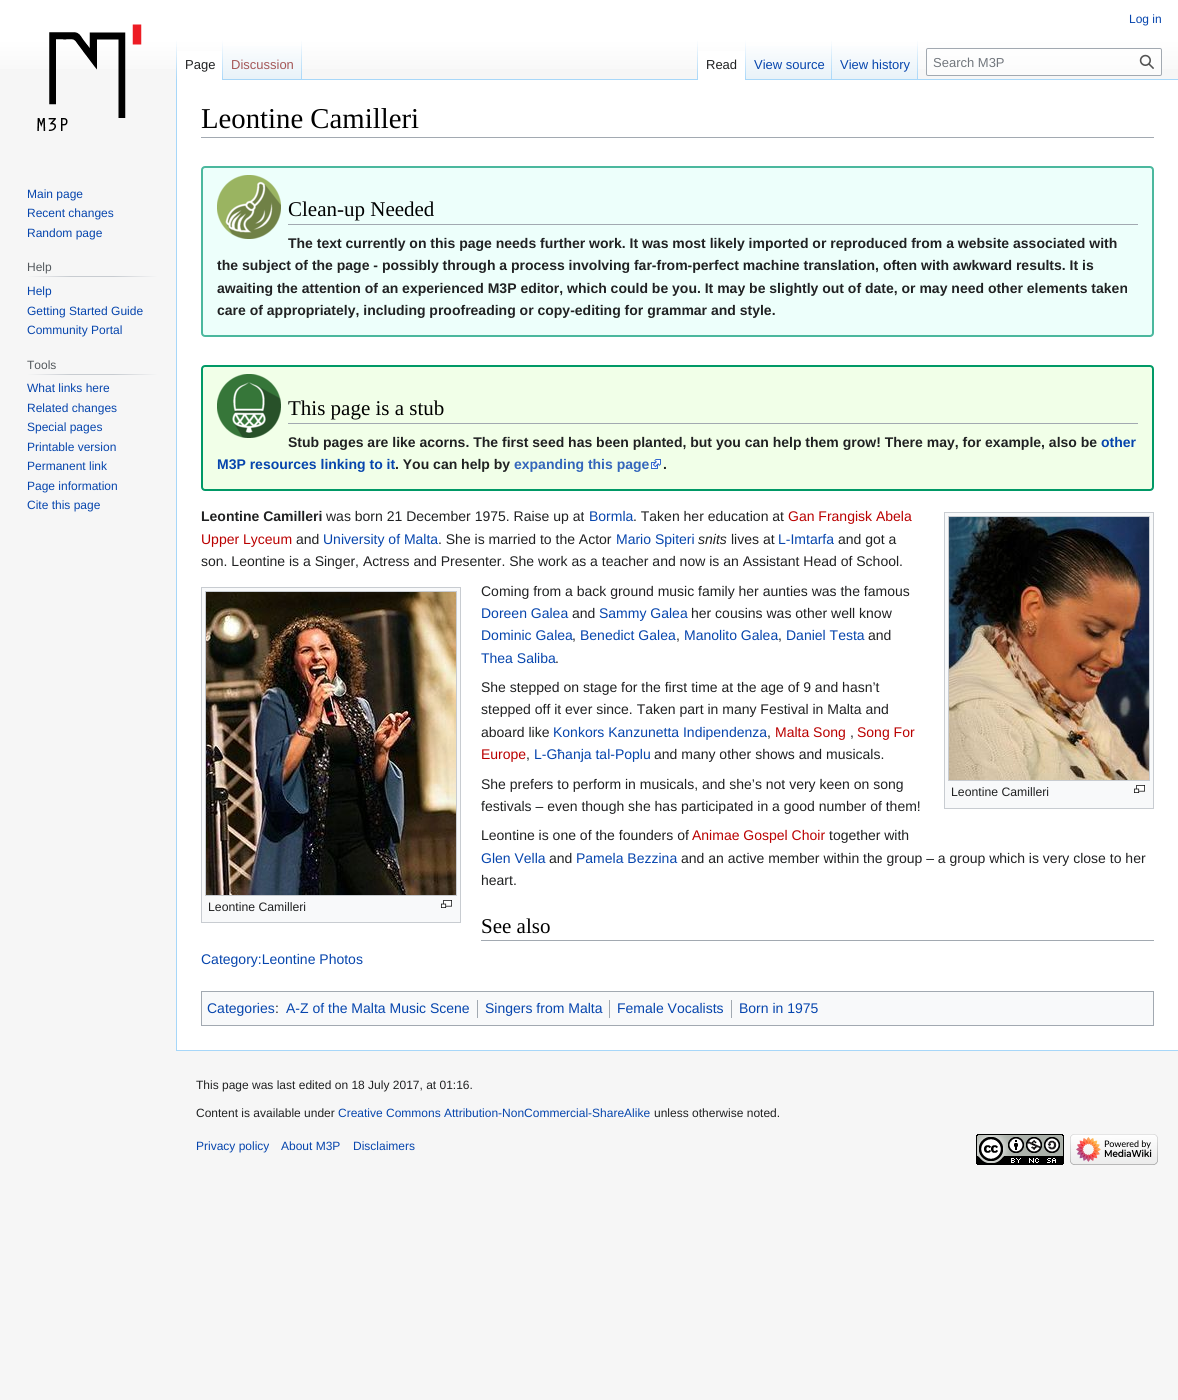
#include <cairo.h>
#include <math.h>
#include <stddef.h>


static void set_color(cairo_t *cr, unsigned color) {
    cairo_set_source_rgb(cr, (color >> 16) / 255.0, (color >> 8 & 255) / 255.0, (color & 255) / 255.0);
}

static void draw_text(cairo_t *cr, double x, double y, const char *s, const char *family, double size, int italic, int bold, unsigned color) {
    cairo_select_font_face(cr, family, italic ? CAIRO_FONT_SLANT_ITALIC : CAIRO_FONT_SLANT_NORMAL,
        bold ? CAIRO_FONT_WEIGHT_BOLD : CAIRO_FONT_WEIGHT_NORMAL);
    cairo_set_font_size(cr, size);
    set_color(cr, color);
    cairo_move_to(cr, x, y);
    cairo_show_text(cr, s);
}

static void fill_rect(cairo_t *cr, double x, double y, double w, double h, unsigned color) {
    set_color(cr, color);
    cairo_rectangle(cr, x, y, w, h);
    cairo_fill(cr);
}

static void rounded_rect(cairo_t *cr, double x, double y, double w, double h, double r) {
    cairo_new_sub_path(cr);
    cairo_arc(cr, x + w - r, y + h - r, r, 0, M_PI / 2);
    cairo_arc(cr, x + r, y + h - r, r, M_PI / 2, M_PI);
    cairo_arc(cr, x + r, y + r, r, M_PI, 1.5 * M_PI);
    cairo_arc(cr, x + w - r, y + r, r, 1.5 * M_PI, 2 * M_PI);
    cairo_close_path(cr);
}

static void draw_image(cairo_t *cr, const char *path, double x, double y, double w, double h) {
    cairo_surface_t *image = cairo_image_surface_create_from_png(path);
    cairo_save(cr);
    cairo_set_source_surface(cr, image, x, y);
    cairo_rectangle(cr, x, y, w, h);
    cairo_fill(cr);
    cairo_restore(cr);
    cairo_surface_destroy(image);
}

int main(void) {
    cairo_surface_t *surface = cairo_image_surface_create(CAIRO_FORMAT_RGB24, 1178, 1400);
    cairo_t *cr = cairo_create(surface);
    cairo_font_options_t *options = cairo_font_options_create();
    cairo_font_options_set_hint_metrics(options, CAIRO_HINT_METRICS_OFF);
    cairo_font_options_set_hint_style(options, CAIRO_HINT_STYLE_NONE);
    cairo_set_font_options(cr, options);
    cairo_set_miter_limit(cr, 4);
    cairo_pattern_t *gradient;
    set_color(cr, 0xF6F6F6);
    cairo_paint(cr);
    gradient = cairo_pattern_create_linear(589, 0, 589, 80);
    cairo_pattern_add_color_stop_rgba(gradient, 0.5, 1, 1, 1, 1);
    cairo_pattern_add_color_stop_rgba(gradient, 1, 0.965, 0.965, 0.965, 1);
    cairo_set_source(cr, gradient);
    cairo_pattern_destroy(gradient);
    cairo_rectangle(cr, 0, 0, 1178, 69);
    cairo_fill(cr);
    draw_text(cr, 1129, 23, "Log in", "Liberation Sans", 12, 0, 0, 0x0645AD);
    fill_rect(cr, 176, 1050, 1002, 1, 0xA7D7F9);
    fill_rect(cr, 176, 79, 1, 972, 0xA7D7F9);
    gradient = cairo_pattern_create_linear(177, 40, 177, 80);
    cairo_pattern_add_color_stop_rgba(gradient, 0, 0.655, 0.843, 0.976, 0);
    cairo_pattern_add_color_stop_rgba(gradient, 1, 0.655, 0.843, 0.976, 1);
    cairo_set_source(cr, gradient);
    cairo_pattern_destroy(gradient);
    cairo_rectangle(cr, 176, 40, 1, 40);
    cairo_fill(cr);
    fill_rect(cr, 177, 51, 45, 29, 0xFFFFFF);
    gradient = cairo_pattern_create_linear(223, 40, 223, 80);
    cairo_pattern_add_color_stop_rgba(gradient, 0, 1, 1, 1, 1);
    cairo_pattern_add_color_stop_rgba(gradient, 1, 0.655, 0.843, 0.976, 1);
    cairo_set_source(cr, gradient);
    cairo_pattern_destroy(gradient);
    cairo_rectangle(cr, 222, 40, 1, 40);
    cairo_fill(cr);
    draw_text(cr, 185, 69, "Page", "Liberation Sans", 13, 0, 0, 0x202122);
    gradient = cairo_pattern_create_linear(263, 80, 263, 40);
    cairo_pattern_add_color_stop_rgba(gradient, 0, 0.467, 0.757, 0.965, 1);
    cairo_pattern_add_color_stop_rgba(gradient, 0.03, 0.91, 0.949, 0.973, 1);
    cairo_pattern_add_color_stop_rgba(gradient, 1, 1, 1, 1, 1);
    cairo_set_source(cr, gradient);
    cairo_pattern_destroy(gradient);
    cairo_rectangle(cr, 223, 46, 79, 34);
    cairo_fill(cr);
    gradient = cairo_pattern_create_linear(302, 40, 302, 80);
    cairo_pattern_add_color_stop_rgba(gradient, 0, 0.655, 0.843, 0.976, 0);
    cairo_pattern_add_color_stop_rgba(gradient, 1, 0.655, 0.843, 0.976, 1);
    cairo_set_source(cr, gradient);
    cairo_pattern_destroy(gradient);
    cairo_rectangle(cr, 301, 40, 1, 40);
    cairo_fill(cr);
    draw_text(cr, 231, 69, "Discussion", "Liberation Sans", 13, 0, 0, 0xA55858);
    fill_rect(cr, 302, 79, 876, 1, 0xA7D7F9);
    gradient = cairo_pattern_create_linear(698, 40, 698, 80);
    cairo_pattern_add_color_stop_rgba(gradient, 0, 0.655, 0.843, 0.976, 0);
    cairo_pattern_add_color_stop_rgba(gradient, 1, 0.655, 0.843, 0.976, 1);
    cairo_set_source(cr, gradient);
    cairo_pattern_destroy(gradient);
    cairo_rectangle(cr, 697, 40, 1, 40);
    cairo_fill(cr);
    fill_rect(cr, 698, 51, 47, 29, 0xFFFFFF);
    gradient = cairo_pattern_create_linear(746, 40, 746, 80);
    cairo_pattern_add_color_stop_rgba(gradient, 0, 1, 1, 1, 1);
    cairo_pattern_add_color_stop_rgba(gradient, 1, 0.655, 0.843, 0.976, 1);
    cairo_set_source(cr, gradient);
    cairo_pattern_destroy(gradient);
    cairo_rectangle(cr, 745, 40, 1, 40);
    cairo_fill(cr);
    draw_text(cr, 706, 69, "Read", "Liberation Sans", 13, 0, 0, 0x202122);
    gradient = cairo_pattern_create_linear(789, 80, 789, 40);
    cairo_pattern_add_color_stop_rgba(gradient, 0, 0.467, 0.757, 0.965, 1);
    cairo_pattern_add_color_stop_rgba(gradient, 0.03, 0.91, 0.949, 0.973, 1);
    cairo_pattern_add_color_stop_rgba(gradient, 1, 1, 1, 1, 1);
    cairo_set_source(cr, gradient);
    cairo_pattern_destroy(gradient);
    cairo_rectangle(cr, 746, 46, 86, 33);
    cairo_fill(cr);
    gradient = cairo_pattern_create_linear(832, 40, 832, 80);
    cairo_pattern_add_color_stop_rgba(gradient, 0, 0.655, 0.843, 0.976, 0);
    cairo_pattern_add_color_stop_rgba(gradient, 1, 0.655, 0.843, 0.976, 1);
    cairo_set_source(cr, gradient);
    cairo_pattern_destroy(gradient);
    cairo_rectangle(cr, 831, 40, 1, 40);
    cairo_fill(cr);
    draw_text(cr, 754, 69, "View source", "Liberation Sans", 13, 0, 0, 0x0645AD);
    gradient = cairo_pattern_create_linear(875, 80, 875, 40);
    cairo_pattern_add_color_stop_rgba(gradient, 0, 0.467, 0.757, 0.965, 1);
    cairo_pattern_add_color_stop_rgba(gradient, 0.03, 0.91, 0.949, 0.973, 1);
    cairo_pattern_add_color_stop_rgba(gradient, 1, 1, 1, 1, 1);
    cairo_set_source(cr, gradient);
    cairo_pattern_destroy(gradient);
    cairo_rectangle(cr, 832, 46, 86, 33);
    cairo_fill(cr);
    gradient = cairo_pattern_create_linear(918, 40, 918, 80);
    cairo_pattern_add_color_stop_rgba(gradient, 0, 0.655, 0.843, 0.976, 0);
    cairo_pattern_add_color_stop_rgba(gradient, 1, 0.655, 0.843, 0.976, 1);
    cairo_set_source(cr, gradient);
    cairo_pattern_destroy(gradient);
    cairo_rectangle(cr, 917, 40, 1, 40);
    cairo_fill(cr);
    draw_text(cr, 840, 69, "View history", "Liberation Sans", 13, 0, 0, 0x0645AD);
    cairo_set_source_rgba(cr, 1, 1, 1, 0.5);
    rounded_rect(cr, 926.5, 48.5, 235, 27, 1.5);
    cairo_fill_preserve(cr);
    set_color(cr, 0xA2A9B1);
    cairo_set_line_width(cr, 1);
    cairo_stroke(cr);
    draw_text(cr, 933, 67, "Search M3P", "Liberation Sans", 13, 0, 0, 0x72777D);
    draw_image(cr, "assets/img1.png", 1139, 54, 15, 15);
    draw_image(cr, "assets/img2.png", 37, 24, 105, 107);
    draw_text(cr, 27, 198, "Main page", "Liberation Sans", 12, 0, 0, 0x0645AD);
    draw_text(cr, 27, 217, "Recent changes", "Liberation Sans", 12, 0, 0, 0x0645AD);
    draw_text(cr, 27, 237, "Random page", "Liberation Sans", 12, 0, 0, 0x0645AD);
    gradient = cairo_pattern_create_linear(27, 277, 158, 277);
    cairo_pattern_add_color_stop_rgba(gradient, 0, 0.965, 0.965, 0.965, 1);
    cairo_pattern_add_color_stop_rgba(gradient, 0.33, 0.784, 0.8, 0.82, 1);
    cairo_pattern_add_color_stop_rgba(gradient, 0.66, 0.784, 0.8, 0.82, 1);
    cairo_pattern_add_color_stop_rgba(gradient, 1, 0.965, 0.965, 0.965, 1);
    cairo_set_source(cr, gradient);
    cairo_pattern_destroy(gradient);
    cairo_rectangle(cr, 27, 276, 131, 1);
    cairo_fill(cr);
    draw_text(cr, 27, 271, "Help", "Liberation Sans", 12, 0, 0, 0x54595D);
    draw_text(cr, 27, 295, "Help", "Liberation Sans", 12, 0, 0, 0x0645AD);
    draw_text(cr, 27, 315, "Getting Started Guide", "Liberation Sans", 12, 0, 0, 0x0645AD);
    draw_text(cr, 27, 334, "Community Portal", "Liberation Sans", 12, 0, 0, 0x0645AD);
    gradient = cairo_pattern_create_linear(27, 375, 158, 375);
    cairo_pattern_add_color_stop_rgba(gradient, 0, 0.965, 0.965, 0.965, 1);
    cairo_pattern_add_color_stop_rgba(gradient, 0.33, 0.784, 0.8, 0.82, 1);
    cairo_pattern_add_color_stop_rgba(gradient, 0.66, 0.784, 0.8, 0.82, 1);
    cairo_pattern_add_color_stop_rgba(gradient, 1, 0.965, 0.965, 0.965, 1);
    cairo_set_source(cr, gradient);
    cairo_pattern_destroy(gradient);
    cairo_rectangle(cr, 27, 374, 131, 1);
    cairo_fill(cr);
    draw_text(cr, 27, 369, "Tools", "Liberation Sans", 12, 0, 0, 0x54595D);
    draw_text(cr, 27, 392, "What links here", "Liberation Sans", 12, 0, 0, 0x0645AD);
    draw_text(cr, 27, 412, "Related changes", "Liberation Sans", 12, 0, 0, 0x0645AD);
    draw_text(cr, 27, 431, "Special pages", "Liberation Sans", 12, 0, 0, 0x0645AD);
    draw_text(cr, 27, 451, "Printable version", "Liberation Sans", 12, 0, 0, 0x0645AD);
    draw_text(cr, 27, 470, "Permanent link", "Liberation Sans", 12, 0, 0, 0x0645AD);
    draw_text(cr, 27, 490, "Page information", "Liberation Sans", 12, 0, 0, 0x0645AD);
    draw_text(cr, 27, 509, "Cite this page", "Liberation Sans", 12, 0, 0, 0x0645AD);
    fill_rect(cr, 177, 80, 1001, 970, 0xFFFFFF);
    fill_rect(cr, 201, 137, 953, 1, 0xA2A9B1);
    draw_text(cr, 201, 128, "Leontine Camilleri", "Liberation Serif", 28.75, 0, 0, 0x000000);
    set_color(cr, 0xEDFFFB);
    rounded_rect(cr, 202, 167, 951, 169, 3);
    cairo_fill_preserve(cr);
    set_color(cr, 0x4BB89E);
    cairo_set_line_width(cr, 2);
    cairo_stroke(cr);
    draw_image(cr, "assets/img3.png", 217, 175, 64, 64);
    fill_rect(cr, 288, 224, 850, 1, 0xA2A9B1);
    draw_text(cr, 288, 216, "Clean-up Needed", "Liberation Serif", 21, 0, 0, 0x000000);
    draw_text(cr, 288, 248, "The text currently on this page needs further work. It was most likely imported or reproduced from a website associated with", "Liberation Sans", 14, 0, 1, 0x202122);
    draw_text(cr, 217, 270, "the subject of the page - possibly through a process involving far-from-perfect machine translation, often with awkward results. It is", "Liberation Sans", 14, 0, 1, 0x202122);
    draw_text(cr, 217, 293, "awaiting the attention of an experienced M3P editor, which could be you. It may be slightly out of date, or may need other elements taken", "Liberation Sans", 14, 0, 1, 0x202122);
    draw_text(cr, 217, 315, "care of appropriately, including proofreading or copy-editing for grammar and style.", "Liberation Sans", 14, 0, 1, 0x202122);
    set_color(cr, 0xF1FFE8);
    rounded_rect(cr, 202, 366, 951, 124, 3);
    cairo_fill_preserve(cr);
    set_color(cr, 0x009966);
    cairo_stroke(cr);
    draw_image(cr, "assets/img4.png", 217, 374, 64, 64);
    fill_rect(cr, 288, 423, 850, 1, 0xA2A9B1);
    draw_text(cr, 288, 415, "This page is a stub", "Liberation Serif", 21, 0, 0, 0x000000);
    draw_text(cr, 288, 447, "Stub pages are like acorns. The first seed has been planted, but you can help them grow! There may, for example, also be", "Liberation Sans", 14, 0, 1, 0x202122);
    draw_text(cr, 1101, 447, "other", "Liberation Sans", 14, 0, 1, 0x0645AD);
    draw_text(cr, 217, 469, "M3P resources linking to it", "Liberation Sans", 14, 0, 1, 0x0645AD);
    draw_text(cr, 395, 469, ". You can help by", "Liberation Sans", 14, 0, 1, 0x202122);
    draw_text(cr, 514, 469, "expanding this page", "Liberation Sans", 14, 0, 1, 0x3366BB);
    draw_image(cr, "assets/img5.png", 651, 459, 10, 10);
    draw_text(cr, 663, 469, ".", "Liberation Sans", 14, 0, 1, 0x202122);
    draw_text(cr, 201, 521, "Leontine Camilleri", "Liberation Sans", 14, 0, 1, 0x202122);
    draw_text(cr, 326, 521, "was born 21 December 1975. Raise up at", "Liberation Sans", 14, 0, 0, 0x202122);
    draw_text(cr, 589, 521, "Bormla", "Liberation Sans", 14, 0, 0, 0x0645AD);
    draw_text(cr, 633, 521, ". Taken her education at", "Liberation Sans", 14, 0, 0, 0x202122);
    draw_text(cr, 788, 521, "Gan Frangisk Abela", "Liberation Sans", 14, 0, 0, 0xBA0000);
    draw_text(cr, 201, 544, "Upper Lyceum", "Liberation Sans", 14, 0, 0, 0xBA0000);
    draw_text(cr, 296, 544, "and", "Liberation Sans", 14, 0, 0, 0x202122);
    draw_text(cr, 323, 544, "University of Malta", "Liberation Sans", 14, 0, 0, 0x0645AD);
    draw_text(cr, 438, 544, ". She is married to the Actor", "Liberation Sans", 14, 0, 0, 0x202122);
    draw_text(cr, 616, 544, "Mario Spiteri", "Liberation Sans", 14, 0, 0, 0x0645AD);
    draw_text(cr, 698, 544, "snits", "Liberation Sans", 14, 1, 0, 0x202122);
    draw_text(cr, 731, 544, "lives at", "Liberation Sans", 14, 0, 0, 0x202122);
    draw_text(cr, 778, 544, "L-Imtarfa", "Liberation Sans", 14, 0, 0, 0x0645AD);
    draw_text(cr, 838, 544, "and got a", "Liberation Sans", 14, 0, 0, 0x202122);
    draw_text(cr, 201, 566, "son. Leontine is a Singer, Actress and Presenter. She work as a teacher and now is an Assistant Head of School.", "Liberation Sans", 14, 0, 0, 0x202122);
    draw_text(cr, 481, 596, "Coming from a back ground music family her aunties was the famous", "Liberation Sans", 14, 0, 0, 0x202122);
    draw_text(cr, 481, 618, "Doreen Galea", "Liberation Sans", 14, 0, 0, 0x0645AD);
    draw_text(cr, 572, 618, "and", "Liberation Sans", 14, 0, 0, 0x202122);
    draw_text(cr, 599, 618, "Sammy Galea", "Liberation Sans", 14, 0, 0, 0x0645AD);
    draw_text(cr, 691, 618, "her cousins was other well know", "Liberation Sans", 14, 0, 0, 0x202122);
    draw_text(cr, 481, 640, "Dominic Galea", "Liberation Sans", 14, 0, 0, 0x0645AD);
    draw_text(cr, 572, 640, ",", "Liberation Sans", 14, 0, 0, 0x202122);
    draw_text(cr, 580, 640, "Benedict Galea", "Liberation Sans", 14, 0, 0, 0x0645AD);
    draw_text(cr, 676, 640, ",", "Liberation Sans", 14, 0, 0, 0x202122);
    draw_text(cr, 684, 640, "Manolito Galea", "Liberation Sans", 14, 0, 0, 0x0645AD);
    draw_text(cr, 778, 640, ",", "Liberation Sans", 14, 0, 0, 0x202122);
    draw_text(cr, 786, 640, "Daniel Testa", "Liberation Sans", 14, 0, 0, 0x0645AD);
    draw_text(cr, 868, 640, "and", "Liberation Sans", 14, 0, 0, 0x202122);
    draw_text(cr, 481, 663, "Thea Saliba", "Liberation Sans", 14, 0, 0, 0x0645AD);
    draw_text(cr, 555, 663, ".", "Liberation Sans", 14, 0, 0, 0x202122);
    draw_text(cr, 481, 692, "She stepped on stage for the first time at the age of 9 and hasn’t", "Liberation Sans", 14, 0, 0, 0x202122);
    draw_text(cr, 481, 714, "stepped off it ever since. Taken part in many Festival in Malta and", "Liberation Sans", 14, 0, 0, 0x202122);
    draw_text(cr, 481, 737, "aboard like", "Liberation Sans", 14, 0, 0, 0x202122);
    draw_text(cr, 553, 737, "Konkors Kanzunetta Indipendenza", "Liberation Sans", 14, 0, 0, 0x0645AD);
    draw_text(cr, 767, 737, ",", "Liberation Sans", 14, 0, 0, 0x202122);
    draw_text(cr, 775, 737, "Malta Song", "Liberation Sans", 14, 0, 0, 0xBA0000);
    draw_text(cr, 850, 737, ",", "Liberation Sans", 14, 0, 0, 0x202122);
    draw_text(cr, 857, 737, "Song For", "Liberation Sans", 14, 0, 0, 0xBA0000);
    draw_text(cr, 481, 759, "Europe", "Liberation Sans", 14, 0, 0, 0xBA0000);
    draw_text(cr, 526, 759, ",", "Liberation Sans", 14, 0, 0, 0x202122);
    draw_text(cr, 534, 759, "L-Għanja tal-Poplu", "Liberation Sans", 14, 0, 0, 0x0645AD);
    draw_text(cr, 654, 759, "and many other shows and musicals.", "Liberation Sans", 14, 0, 0, 0x202122);
    draw_text(cr, 481, 789, "She prefers to perform in musicals, and she’s not very keen on song", "Liberation Sans", 14, 0, 0, 0x202122);
    draw_text(cr, 481, 811, "festivals – even though she has participated in a good number of them!", "Liberation Sans", 14, 0, 0, 0x202122);
    set_color(cr, 0xF8F9FA);
    cairo_rectangle(cr, 944.5, 512.5, 209, 296);
    cairo_fill_preserve(cr);
    set_color(cr, 0xC8CCD1);
    cairo_set_line_width(cr, 1);
    cairo_stroke(cr);
    cairo_rectangle(cr, 948.5, 516.5, 201, 264);
    cairo_stroke(cr);
    draw_image(cr, "assets/img6.png", 949, 517, 200, 263);
    draw_text(cr, 951, 796, "Leontine Camilleri", "Liberation Sans", 12.25, 0, 0, 0x202122);
    draw_image(cr, "assets/img7.png", 1134, 785, 11, 8);
    draw_text(cr, 481, 840, "Leontine is one of the founders of", "Liberation Sans", 14, 0, 0, 0x202122);
    draw_text(cr, 692, 840, "Animae Gospel Choir", "Liberation Sans", 14, 0, 0, 0xBA0000);
    draw_text(cr, 829, 840, "together with", "Liberation Sans", 14, 0, 0, 0x202122);
    draw_text(cr, 481, 863, "Glen Vella", "Liberation Sans", 14, 0, 0, 0x0645AD);
    draw_text(cr, 549, 863, "and", "Liberation Sans", 14, 0, 0, 0x202122);
    draw_text(cr, 576, 863, "Pamela Bezzina", "Liberation Sans", 14, 0, 0, 0x0645AD);
    draw_text(cr, 681, 863, "and an active member within the group – a group which is very close to her", "Liberation Sans", 14, 0, 0, 0x202122);
    draw_text(cr, 481, 885, "heart.", "Liberation Sans", 14, 0, 0, 0x202122);
    set_color(cr, 0xF8F9FA);
    cairo_rectangle(cr, 201.5, 587.5, 259, 335);
    cairo_fill_preserve(cr);
    set_color(cr, 0xC8CCD1);
    cairo_stroke(cr);
    cairo_rectangle(cr, 205.5, 591.5, 251, 304);
    cairo_stroke(cr);
    draw_image(cr, "assets/img8.png", 206, 592, 250, 303);
    draw_text(cr, 208, 911, "Leontine Camilleri", "Liberation Sans", 12.25, 0, 0, 0x202122);
    draw_image(cr, "assets/img7.png", 441, 900, 11, 8);
    fill_rect(cr, 481, 940, 673, 1, 0xA2A9B1);
    draw_text(cr, 481, 933, "See also", "Liberation Serif", 21, 0, 0, 0x000000);
    draw_text(cr, 201, 964, "Category:Leontine Photos", "Liberation Sans", 14, 0, 0, 0x0645AD);
    set_color(cr, 0xF8F9FA);
    cairo_rectangle(cr, 201.5, 991.5, 952, 34);
    cairo_fill_preserve(cr);
    set_color(cr, 0xA2A9B1);
    cairo_stroke(cr);
    draw_text(cr, 207, 1013, "Categories", "Liberation Sans", 14, 0, 0, 0x0645AD);
    draw_text(cr, 275, 1013, ":", "Liberation Sans", 14, 0, 0, 0x202122);
    draw_text(cr, 286, 1013, "A-Z of the Malta Music Scene", "Liberation Sans", 14, 0, 0, 0x0645AD);
    fill_rect(cr, 477, 1000, 1, 18, 0xA2A9B1);
    draw_text(cr, 485, 1013, "Singers from Malta", "Liberation Sans", 14, 0, 0, 0x0645AD);
    fill_rect(cr, 609, 1000, 1, 18, 0xA2A9B1);
    draw_text(cr, 617, 1013, "Female Vocalists", "Liberation Sans", 14, 0, 0, 0x0645AD);
    fill_rect(cr, 731, 1000, 1, 18, 0xA2A9B1);
    draw_text(cr, 739, 1013, "Born in 1975", "Liberation Sans", 14, 0, 0, 0x0645AD);
    draw_text(cr, 196, 1089, "This page was last edited on 18 July 2017, at 01:16.", "Liberation Sans", 12, 0, 0, 0x202122);
    draw_text(cr, 196, 1117, "Content is available under", "Liberation Sans", 12, 0, 0, 0x202122);
    draw_text(cr, 338, 1117, "Creative Commons Attribution-NonCommercial-ShareAlike", "Liberation Sans", 12, 0, 0, 0x0645AD);
    draw_text(cr, 654, 1117, "unless otherwise noted.", "Liberation Sans", 12, 0, 0, 0x202122);
    draw_text(cr, 196, 1150, "Privacy policy", "Liberation Sans", 12, 0, 0, 0x0645AD);
    draw_text(cr, 281, 1150, "About M3P", "Liberation Sans", 12, 0, 0, 0x0645AD);
    draw_text(cr, 353, 1150, "Disclaimers", "Liberation Sans", 12, 0, 0, 0x0645AD);
    draw_image(cr, "assets/img9.png", 976, 1134, 88, 31);
    draw_image(cr, "assets/img10.png", 1070, 1134, 88, 31);
    cairo_surface_write_to_png(surface, "output.png");
    cairo_font_options_destroy(options);
    cairo_destroy(cr);
    cairo_surface_destroy(surface);
    return 0;
}
